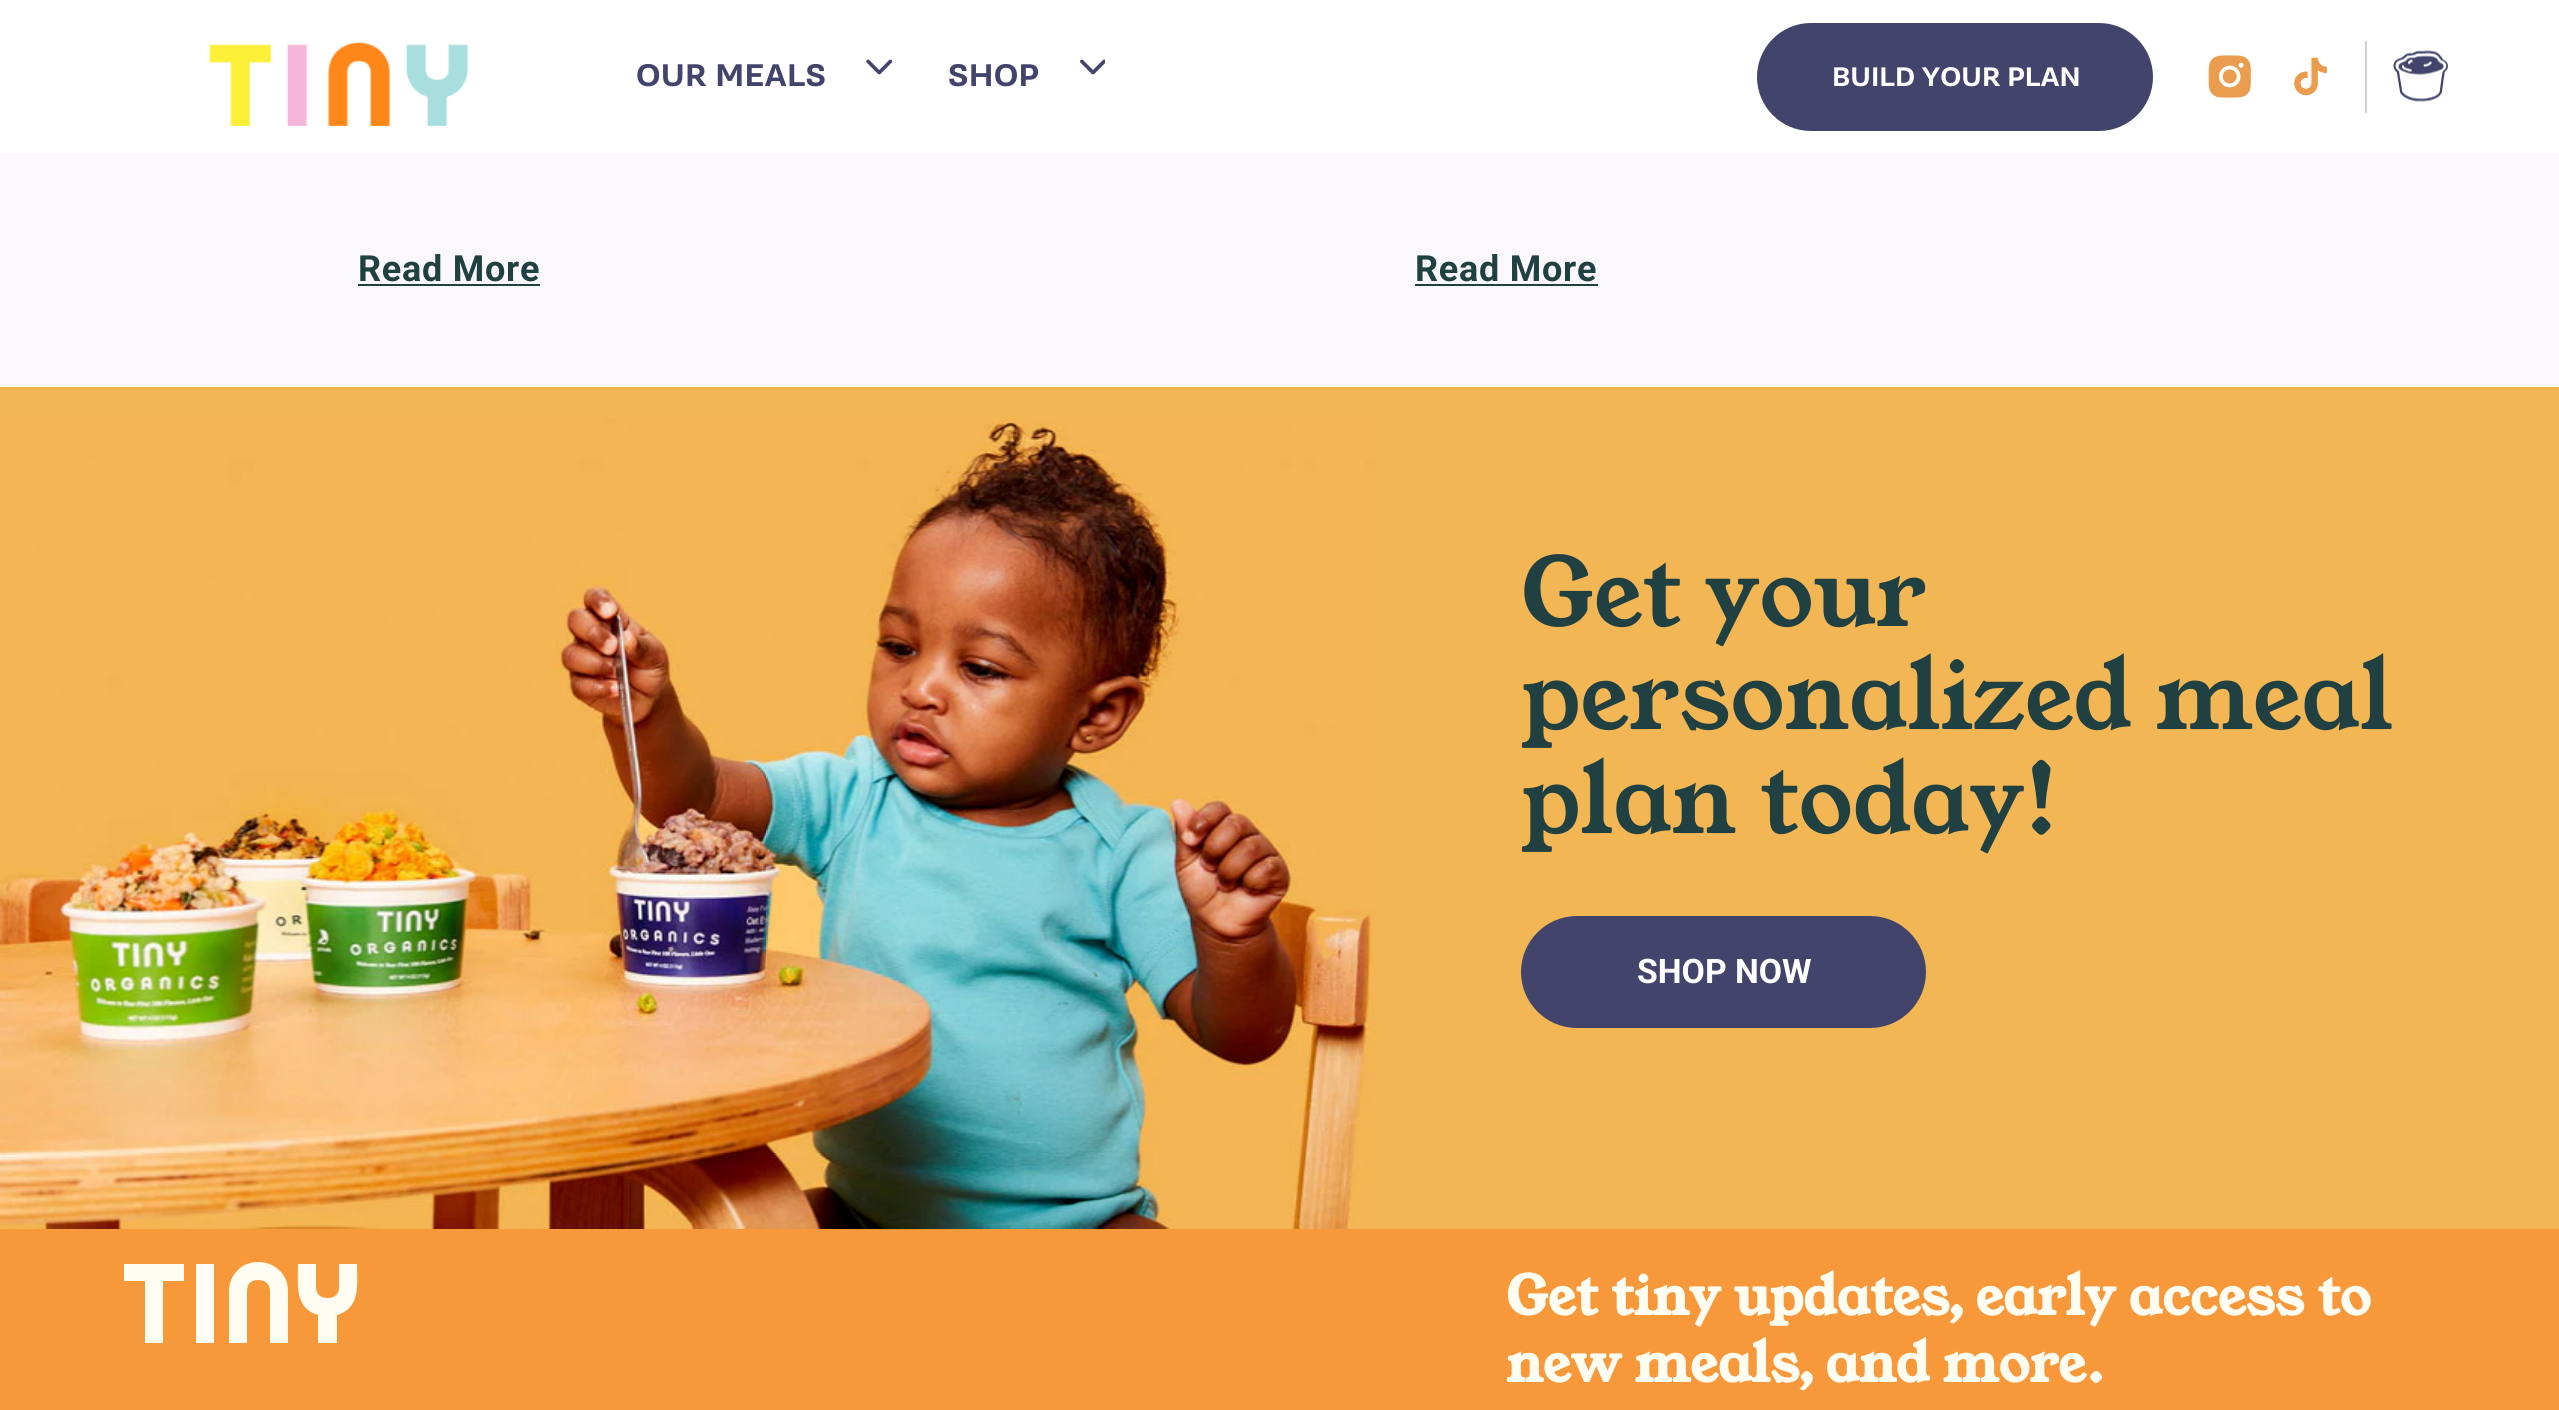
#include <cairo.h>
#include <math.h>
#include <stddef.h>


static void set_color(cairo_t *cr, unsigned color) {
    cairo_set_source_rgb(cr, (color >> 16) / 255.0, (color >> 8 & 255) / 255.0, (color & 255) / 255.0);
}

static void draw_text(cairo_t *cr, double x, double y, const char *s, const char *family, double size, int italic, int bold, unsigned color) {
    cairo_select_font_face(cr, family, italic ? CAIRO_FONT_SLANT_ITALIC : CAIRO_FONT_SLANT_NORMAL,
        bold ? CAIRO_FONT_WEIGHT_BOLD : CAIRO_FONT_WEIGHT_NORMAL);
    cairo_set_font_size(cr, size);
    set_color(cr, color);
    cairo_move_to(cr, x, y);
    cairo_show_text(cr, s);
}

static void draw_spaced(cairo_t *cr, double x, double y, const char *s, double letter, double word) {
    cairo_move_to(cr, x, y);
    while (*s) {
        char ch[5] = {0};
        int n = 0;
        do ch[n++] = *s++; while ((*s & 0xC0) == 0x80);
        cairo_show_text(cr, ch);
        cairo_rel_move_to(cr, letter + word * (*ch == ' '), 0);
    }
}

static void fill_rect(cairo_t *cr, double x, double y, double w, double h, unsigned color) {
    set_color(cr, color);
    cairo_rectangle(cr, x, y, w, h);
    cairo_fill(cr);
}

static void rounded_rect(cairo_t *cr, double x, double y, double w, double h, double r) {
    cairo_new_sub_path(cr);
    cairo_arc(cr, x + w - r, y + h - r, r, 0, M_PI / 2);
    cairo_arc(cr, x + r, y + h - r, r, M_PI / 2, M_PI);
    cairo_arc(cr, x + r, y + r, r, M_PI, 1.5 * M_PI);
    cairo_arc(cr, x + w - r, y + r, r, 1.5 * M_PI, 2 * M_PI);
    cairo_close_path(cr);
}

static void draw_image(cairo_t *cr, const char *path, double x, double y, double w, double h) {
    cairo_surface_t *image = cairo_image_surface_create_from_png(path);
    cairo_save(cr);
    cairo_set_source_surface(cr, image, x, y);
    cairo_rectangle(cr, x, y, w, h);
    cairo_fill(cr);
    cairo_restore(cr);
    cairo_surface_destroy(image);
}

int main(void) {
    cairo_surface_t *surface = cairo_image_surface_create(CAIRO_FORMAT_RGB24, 2559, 1410);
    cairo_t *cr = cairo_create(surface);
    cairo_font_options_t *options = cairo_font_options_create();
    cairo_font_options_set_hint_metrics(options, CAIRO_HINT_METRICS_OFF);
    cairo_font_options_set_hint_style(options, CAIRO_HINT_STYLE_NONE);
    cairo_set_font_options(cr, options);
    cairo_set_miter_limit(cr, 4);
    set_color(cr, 0xFAF8FC);
    cairo_paint(cr);
    fill_rect(cr, 0, 0, 2559, 153, 0xFFFFFF);
    draw_image(cr, "assets/img1.png", 208, 42, 260, 84);
    cairo_select_font_face(cr, "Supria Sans", CAIRO_FONT_SLANT_NORMAL, CAIRO_FONT_WEIGHT_BOLD);
    cairo_set_font_size(cr, 31.5);
    set_color(cr, 0x42446C);
    draw_spaced(cr, 636, 86, "OUR MEALS", 0.25, 0);
    draw_image(cr, "assets/img2.png", 866, 59, 27, 16);
    draw_spaced(cr, 948, 86, "SHOP", 0.25, 0);
    draw_image(cr, "assets/img3.png", 1080, 59, 25, 16);
    rounded_rect(cr, 1759.5, 25.5, 391, 103, 51.5);
    cairo_fill_preserve(cr);
    cairo_set_line_width(cr, 5);
    cairo_stroke(cr);
    draw_text(cr, 1832, 86, "BUILD YOUR PLAN", "Supria Sans", 27, 0, 1, 0xFFFFFF);
    draw_image(cr, "assets/img4.png", 2208, 55, 43, 43);
    draw_image(cr, "assets/img5.png", 2294, 57, 33, 39);
    fill_rect(cr, 2365, 41, 2, 72, 0xCFCFCF);
    draw_image(cr, "assets/img6.png", 2393, 50, 55, 52);
    cairo_select_font_face(cr, "Roboto", CAIRO_FONT_SLANT_NORMAL, CAIRO_FONT_WEIGHT_BOLD);
    cairo_set_font_size(cr, 36);
    set_color(cr, 0x204041);
    draw_spaced(cr, 358, 281, "Read More", 0.75, 0);
    fill_rect(cr, 358, 284, 182, 2, 0x204041);
    draw_spaced(cr, 1415, 281, "Read More", 0.75, 0);
    fill_rect(cr, 1415, 284, 183, 2, 0x204041);
    fill_rect(cr, 0, 387, 2559, 842, 0xF3B654);
    draw_image(cr, "assets/img7.png", 0, 418, 1376, 811);
    draw_text(cr, 1521, 626, "Get your", "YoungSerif", 94.5, 0, 0, 0x204041);
    draw_text(cr, 1521, 729, "personalized meal", "YoungSerif", 94.5, 0, 0, 0x204041);
    draw_text(cr, 1521, 833, "plan today!", "YoungSerif", 94.5, 0, 0, 0x204041);
    set_color(cr, 0x42446C);
    rounded_rect(cr, 1523.5, 918.5, 400, 107, 53.5);
    cairo_fill_preserve(cr);
    cairo_stroke(cr);
    draw_text(cr, 1637, 983, "SHOP NOW", "Roboto", 33.75, 0, 1, 0xFFFFFF);
    fill_rect(cr, 0, 1229, 2559, 181, 0xF7993B);
    set_color(cr, 0xFFFCF2);
    cairo_new_path(cr);
    cairo_move_to(cr, 124, 1281);
    cairo_line_to(cr, 145, 1281);
    cairo_line_to(cr, 145, 1343);
    cairo_line_to(cr, 163, 1343);
    cairo_line_to(cr, 163, 1281);
    cairo_line_to(cr, 184, 1281);
    cairo_line_to(cr, 184, 1264);
    cairo_line_to(cr, 124, 1264);
    cairo_close_path(cr);
    cairo_fill(cr);
    fill_rect(cr, 196, 1264, 18, 79, 0xFFFCF2);
    cairo_new_path(cr);
    cairo_move_to(cr, 258, 1262);
    cairo_curve_to(cr, 250, 1262, 242, 1265, 237, 1271);
    cairo_curve_to(cr, 232, 1276, 229, 1283, 229, 1291);
    cairo_line_to(cr, 229, 1343);
    cairo_line_to(cr, 247, 1343);
    cairo_line_to(cr, 247, 1291);
    cairo_curve_to(cr, 247, 1284, 251, 1280, 258, 1280);
    cairo_curve_to(cr, 265, 1280, 270, 1284, 270, 1291);
    cairo_line_to(cr, 270, 1343);
    cairo_line_to(cr, 288, 1343);
    cairo_line_to(cr, 288, 1291);
    cairo_curve_to(cr, 288, 1283, 285, 1276, 280, 1271);
    cairo_curve_to(cr, 274, 1265, 267, 1262, 258, 1262);
    cairo_close_path(cr);
    cairo_fill(cr);
    cairo_new_path(cr);
    cairo_move_to(cr, 339, 1287);
    cairo_curve_to(cr, 339, 1294, 335, 1298, 328, 1298);
    cairo_curve_to(cr, 320, 1298, 316, 1294, 316, 1287);
    cairo_line_to(cr, 316, 1264);
    cairo_line_to(cr, 298, 1264);
    cairo_curve_to(cr, 298, 1284, 294, 1308, 318, 1315);
    cairo_line_to(cr, 318, 1343);
    cairo_line_to(cr, 337, 1343);
    cairo_line_to(cr, 337, 1315);
    cairo_curve_to(cr, 361, 1308, 357, 1284, 357, 1264);
    cairo_line_to(cr, 339, 1264);
    cairo_close_path(cr);
    cairo_fill(cr);
    draw_text(cr, 1506, 1315, "Get tiny updates, early access to", "YoungSerif", 54, 0, 1, 0xFFFCF2);
    draw_text(cr, 1506, 1382, "new meals, and more.", "YoungSerif", 54, 0, 1, 0xFFFCF2);
    cairo_surface_write_to_png(surface, "output.png");
    cairo_font_options_destroy(options);
    cairo_destroy(cr);
    cairo_surface_destroy(surface);
    return 0;
}
